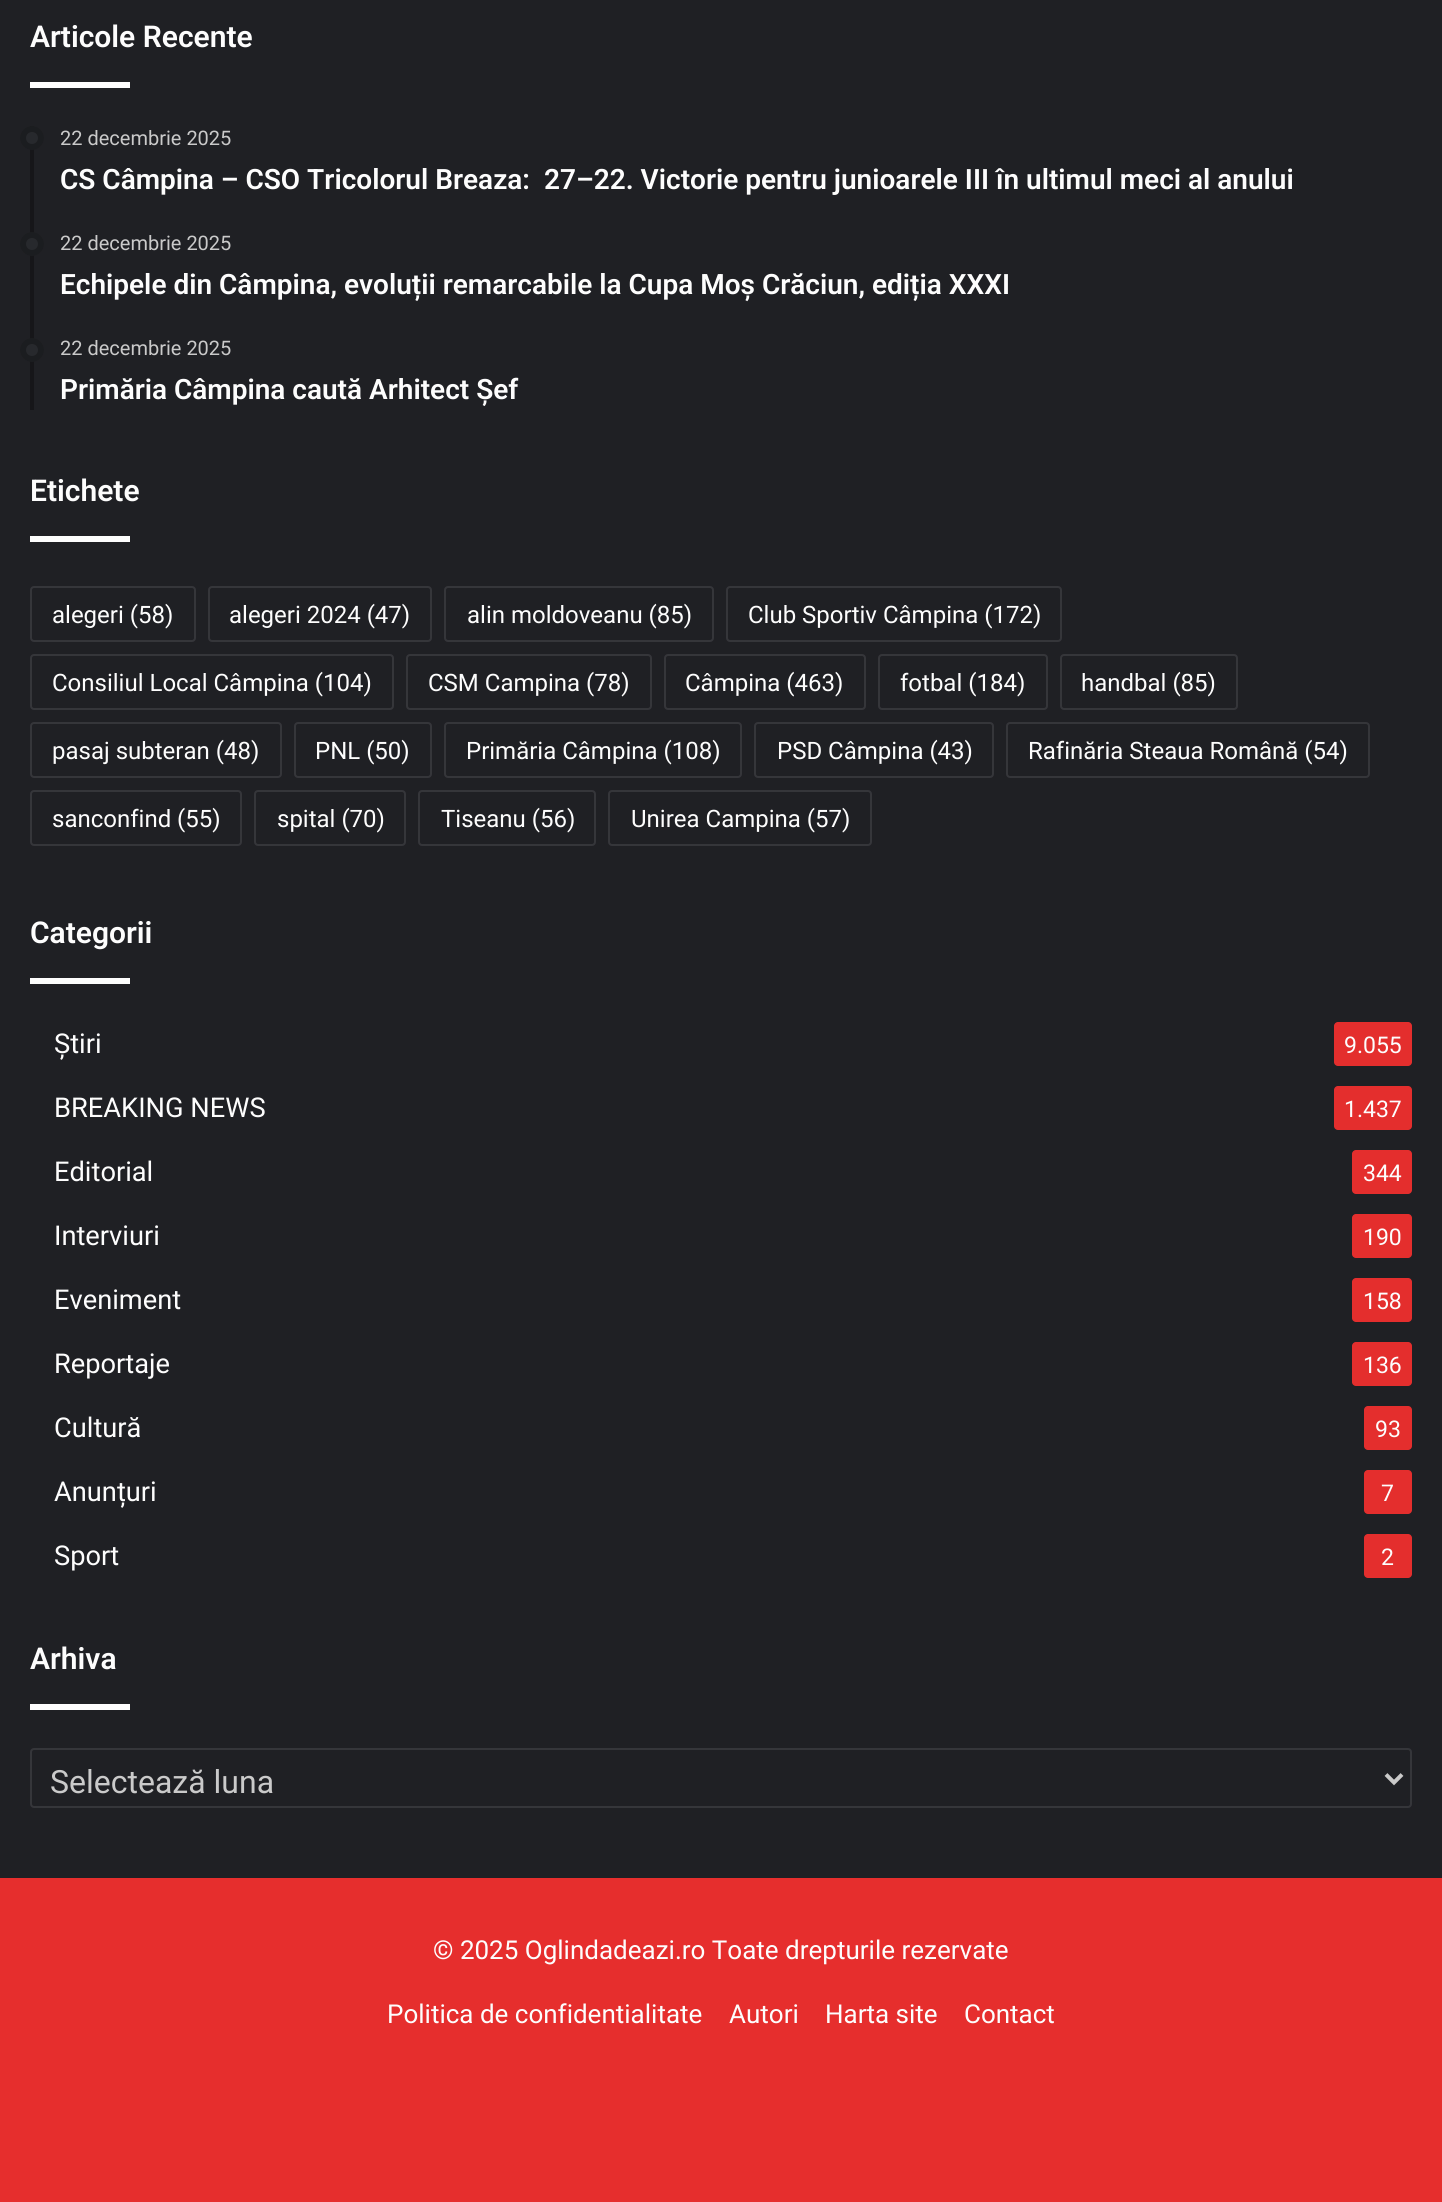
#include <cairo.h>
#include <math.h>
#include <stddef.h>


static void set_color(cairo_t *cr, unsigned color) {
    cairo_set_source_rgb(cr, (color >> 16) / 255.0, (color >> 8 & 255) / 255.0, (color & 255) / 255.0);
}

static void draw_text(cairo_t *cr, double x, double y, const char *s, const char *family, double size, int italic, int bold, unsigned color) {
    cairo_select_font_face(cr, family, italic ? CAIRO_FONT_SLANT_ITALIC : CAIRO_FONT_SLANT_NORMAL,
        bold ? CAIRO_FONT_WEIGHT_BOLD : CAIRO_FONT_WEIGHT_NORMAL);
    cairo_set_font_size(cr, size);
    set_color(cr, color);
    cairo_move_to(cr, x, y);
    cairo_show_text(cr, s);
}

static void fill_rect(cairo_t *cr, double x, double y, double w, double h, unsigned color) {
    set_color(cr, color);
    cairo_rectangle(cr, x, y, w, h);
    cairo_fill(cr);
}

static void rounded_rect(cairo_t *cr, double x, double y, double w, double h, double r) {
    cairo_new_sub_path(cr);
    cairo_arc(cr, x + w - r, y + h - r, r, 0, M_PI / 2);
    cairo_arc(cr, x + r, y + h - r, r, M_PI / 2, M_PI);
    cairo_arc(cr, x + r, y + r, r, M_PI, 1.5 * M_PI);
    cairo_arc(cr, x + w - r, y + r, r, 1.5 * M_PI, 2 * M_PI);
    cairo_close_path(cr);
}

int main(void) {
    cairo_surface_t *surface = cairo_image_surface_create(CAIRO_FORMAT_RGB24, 1442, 2202);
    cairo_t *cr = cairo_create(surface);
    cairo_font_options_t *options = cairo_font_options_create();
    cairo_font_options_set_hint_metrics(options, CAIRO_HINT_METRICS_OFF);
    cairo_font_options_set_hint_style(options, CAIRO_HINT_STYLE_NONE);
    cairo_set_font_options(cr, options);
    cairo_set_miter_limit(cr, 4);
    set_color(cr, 0x1F2024);
    cairo_paint(cr);
    draw_text(cr, 30, 47, "Articole Recente", "Roboto SemiBold", 30, 0, 0, 0xFDFDFD);
    fill_rect(cr, 30, 82, 100, 6, 0xFDFDFD);
    fill_rect(cr, 30, 126, 4, 284, 0x161619);
    set_color(cr, 0x27292D);
    cairo_new_path(cr);
    cairo_arc(cr, 32, 138, 12, 0, 2 * M_PI);
    cairo_fill(cr);
    cairo_arc(cr, 32, 138, 9, 0, 2 * M_PI);
    cairo_set_source_rgba(cr, 0, 0, 0, 0.3);
    cairo_set_line_width(cr, 6);
    cairo_stroke(cr);
    draw_text(cr, 60, 145, "22 decembrie 2025", "Roboto", 20, 0, 0, 0xCACACA);
    draw_text(cr, 60, 189, "CS Câmpina – CSO Tricolorul Breaza:  27–22. Victorie pentru junioarele III în ultimul meci al anului", "Roboto SemiBold", 28, 0, 0, 0xFDFDFD);
    set_color(cr, 0x27292D);
    cairo_new_path(cr);
    cairo_arc(cr, 32, 244, 12, 0, 2 * M_PI);
    cairo_fill(cr);
    cairo_arc(cr, 32, 244, 9, 0, 2 * M_PI);
    cairo_set_source_rgba(cr, 0, 0, 0, 0.3);
    cairo_stroke(cr);
    draw_text(cr, 60, 250, "22 decembrie 2025", "Roboto", 20, 0, 0, 0xCACACA);
    draw_text(cr, 60, 294, "Echipele din Câmpina, evoluții remarcabile la Cupa Moș Crăciun, ediția XXXI", "Roboto SemiBold", 28, 0, 0, 0xFDFDFD);
    set_color(cr, 0x27292D);
    cairo_new_path(cr);
    cairo_arc(cr, 32, 350, 12, 0, 2 * M_PI);
    cairo_fill(cr);
    cairo_arc(cr, 32, 350, 9, 0, 2 * M_PI);
    cairo_set_source_rgba(cr, 0, 0, 0, 0.3);
    cairo_stroke(cr);
    draw_text(cr, 60, 355, "22 decembrie 2025", "Roboto", 20, 0, 0, 0xCACACA);
    draw_text(cr, 60, 399, "Primăria Câmpina caută Arhitect Șef", "Roboto SemiBold", 28, 0, 0, 0xFDFDFD);
    draw_text(cr, 30, 501, "Etichete", "Roboto SemiBold", 30, 0, 0, 0xFDFDFD);
    fill_rect(cr, 30, 536, 100, 6, 0xFDFDFD);
    rounded_rect(cr, 31, 587, 164, 54, 3);
    set_color(cr, 0x35363A);
    cairo_set_line_width(cr, 2);
    cairo_stroke(cr);
    draw_text(cr, 52, 623, "alegeri (58)", "Roboto", 24, 0, 0, 0xFDFDFD);
    rounded_rect(cr, 209, 587, 222, 54, 3);
    set_color(cr, 0x35363A);
    cairo_stroke(cr);
    draw_text(cr, 229, 623, "alegeri 2024 (47)", "Roboto", 24, 0, 0, 0xFDFDFD);
    rounded_rect(cr, 445, 587, 268, 54, 3);
    set_color(cr, 0x35363A);
    cairo_stroke(cr);
    draw_text(cr, 467, 623, "alin moldoveanu (85)", "Roboto", 24, 0, 0, 0xFDFDFD);
    rounded_rect(cr, 727, 587, 334, 54, 3);
    set_color(cr, 0x35363A);
    cairo_stroke(cr);
    draw_text(cr, 748, 623, "Club Sportiv Câmpina (172)", "Roboto", 24, 0, 0, 0xFDFDFD);
    rounded_rect(cr, 31, 655, 362, 54, 3);
    set_color(cr, 0x35363A);
    cairo_stroke(cr);
    draw_text(cr, 52, 691, "Consiliul Local Câmpina (104)", "Roboto", 24, 0, 0, 0xFDFDFD);
    rounded_rect(cr, 407, 655, 244, 54, 3);
    set_color(cr, 0x35363A);
    cairo_stroke(cr);
    draw_text(cr, 428, 691, "CSM Campina (78)", "Roboto", 24, 0, 0, 0xFDFDFD);
    rounded_rect(cr, 665, 655, 200, 54, 3);
    set_color(cr, 0x35363A);
    cairo_stroke(cr);
    draw_text(cr, 685, 691, "Câmpina (463)", "Roboto", 24, 0, 0, 0xFDFDFD);
    rounded_rect(cr, 879, 655, 168, 54, 3);
    set_color(cr, 0x35363A);
    cairo_stroke(cr);
    draw_text(cr, 900, 691, "fotbal (184)", "Roboto", 24, 0, 0, 0xFDFDFD);
    rounded_rect(cr, 1061, 655, 176, 54, 3);
    set_color(cr, 0x35363A);
    cairo_stroke(cr);
    draw_text(cr, 1081, 691, "handbal (85)", "Roboto", 24, 0, 0, 0xFDFDFD);
    rounded_rect(cr, 31, 723, 250, 54, 3);
    set_color(cr, 0x35363A);
    cairo_stroke(cr);
    draw_text(cr, 52, 759, "pasaj subteran (48)", "Roboto", 24, 0, 0, 0xFDFDFD);
    rounded_rect(cr, 295, 723, 136, 54, 3);
    set_color(cr, 0x35363A);
    cairo_stroke(cr);
    draw_text(cr, 315, 759, "PNL (50)", "Roboto", 24, 0, 0, 0xFDFDFD);
    rounded_rect(cr, 445, 723, 296, 54, 3);
    set_color(cr, 0x35363A);
    cairo_stroke(cr);
    draw_text(cr, 466, 759, "Primăria Câmpina (108)", "Roboto", 24, 0, 0, 0xFDFDFD);
    rounded_rect(cr, 755, 723, 238, 54, 3);
    set_color(cr, 0x35363A);
    cairo_stroke(cr);
    draw_text(cr, 777, 759, "PSD Câmpina (43)", "Roboto", 24, 0, 0, 0xFDFDFD);
    rounded_rect(cr, 1007, 723, 362, 54, 3);
    set_color(cr, 0x35363A);
    cairo_stroke(cr);
    draw_text(cr, 1028, 759, "Rafinăria Steaua Română (54)", "Roboto", 24, 0, 0, 0xFDFDFD);
    rounded_rect(cr, 31, 791, 210, 54, 3);
    set_color(cr, 0x35363A);
    cairo_stroke(cr);
    draw_text(cr, 52, 827, "sanconfind (55)", "Roboto", 24, 0, 0, 0xFDFDFD);
    rounded_rect(cr, 255, 791, 150, 54, 3);
    set_color(cr, 0x35363A);
    cairo_stroke(cr);
    draw_text(cr, 277, 827, "spital (70)", "Roboto", 24, 0, 0, 0xFDFDFD);
    rounded_rect(cr, 419, 791, 176, 54, 3);
    set_color(cr, 0x35363A);
    cairo_stroke(cr);
    draw_text(cr, 441, 827, "Tiseanu (56)", "Roboto", 24, 0, 0, 0xFDFDFD);
    rounded_rect(cr, 609, 791, 262, 54, 3);
    set_color(cr, 0x35363A);
    cairo_stroke(cr);
    draw_text(cr, 631, 827, "Unirea Campina (57)", "Roboto", 24, 0, 0, 0xFDFDFD);
    draw_text(cr, 30, 943, "Categorii", "Roboto SemiBold", 30, 0, 0, 0xFDFDFD);
    fill_rect(cr, 30, 978, 100, 6, 0xFDFDFD);
    draw_text(cr, 54, 1053, "Știri", "Roboto", 27.25, 0, 0, 0xFDFDFD);
    set_color(cr, 0xE42E2D);
    rounded_rect(cr, 1334, 1022, 78, 44, 4);
    cairo_fill(cr);
    draw_text(cr, 1344, 1053, "9.055", "Roboto", 23, 0, 0, 0xFDFDFD);
    draw_text(cr, 54, 1117, "BREAKING NEWS", "Roboto", 27.25, 0, 0, 0xFDFDFD);
    set_color(cr, 0xE42E2D);
    rounded_rect(cr, 1334, 1086, 78, 44, 4);
    cairo_fill(cr);
    draw_text(cr, 1344, 1117, "1.437", "Roboto", 23, 0, 0, 0xFDFDFD);
    draw_text(cr, 54, 1181, "Editorial", "Roboto", 27.25, 0, 0, 0xFDFDFD);
    set_color(cr, 0xE42E2D);
    rounded_rect(cr, 1352, 1150, 60, 44, 4);
    cairo_fill(cr);
    draw_text(cr, 1363, 1181, "344", "Roboto", 23, 0, 0, 0xFDFDFD);
    draw_text(cr, 54, 1245, "Interviuri", "Roboto", 27.25, 0, 0, 0xFDFDFD);
    set_color(cr, 0xE42E2D);
    rounded_rect(cr, 1352, 1214, 60, 44, 4);
    cairo_fill(cr);
    draw_text(cr, 1363, 1245, "190", "Roboto", 23, 0, 0, 0xFDFDFD);
    draw_text(cr, 54, 1309, "Eveniment", "Roboto", 27.25, 0, 0, 0xFDFDFD);
    set_color(cr, 0xE42E2D);
    rounded_rect(cr, 1352, 1278, 60, 44, 4);
    cairo_fill(cr);
    draw_text(cr, 1363, 1309, "158", "Roboto", 23, 0, 0, 0xFDFDFD);
    draw_text(cr, 54, 1373, "Reportaje", "Roboto", 27.25, 0, 0, 0xFDFDFD);
    set_color(cr, 0xE42E2D);
    rounded_rect(cr, 1352, 1342, 60, 44, 4);
    cairo_fill(cr);
    draw_text(cr, 1363, 1373, "136", "Roboto", 23, 0, 0, 0xFDFDFD);
    draw_text(cr, 54, 1437, "Cultură", "Roboto", 27.25, 0, 0, 0xFDFDFD);
    set_color(cr, 0xE42E2D);
    rounded_rect(cr, 1364, 1406, 48, 44, 4);
    cairo_fill(cr);
    draw_text(cr, 1375, 1437, "93", "Roboto", 23, 0, 0, 0xFDFDFD);
    draw_text(cr, 54, 1501, "Anunțuri", "Roboto", 27.25, 0, 0, 0xFDFDFD);
    set_color(cr, 0xE42E2D);
    rounded_rect(cr, 1364, 1470, 48, 44, 4);
    cairo_fill(cr);
    draw_text(cr, 1381, 1501, "7", "Roboto", 23, 0, 0, 0xFDFDFD);
    draw_text(cr, 54, 1565, "Sport", "Roboto", 27.25, 0, 0, 0xFDFDFD);
    set_color(cr, 0xE42E2D);
    rounded_rect(cr, 1364, 1534, 48, 44, 4);
    cairo_fill(cr);
    draw_text(cr, 1381, 1565, "2", "Roboto", 23, 0, 0, 0xFDFDFD);
    draw_text(cr, 30, 1669, "Arhiva", "Roboto SemiBold", 30, 0, 0, 0xFDFDFD);
    fill_rect(cr, 30, 1704, 100, 6, 0xFDFDFD);
    rounded_rect(cr, 31, 1749, 1380, 58, 3);
    set_color(cr, 0x35363A);
    cairo_stroke(cr);
    cairo_new_path(cr);
    cairo_move_to(cr, 1386, 1774.5);
    cairo_line_to(cr, 1394, 1782.5);
    cairo_line_to(cr, 1402, 1774.5);
    set_color(cr, 0xCACACA);
    cairo_set_line_width(cr, 4);
    cairo_stroke(cr);
    draw_text(cr, 50, 1793, "Selectează luna", "Roboto", 32, 0, 0, 0xCACACA);
    fill_rect(cr, 0, 1878, 1442, 324, 0xE62E2D);
    draw_text(cr, 433, 1959, "© 2025 Oglindadeazi.ro Toate drepturile rezervate", "Roboto", 26, 0, 0, 0xFDFDFD);
    draw_text(cr, 387, 2023, "Politica de confidentialitate", "Roboto", 26, 0, 0, 0xFDFDFD);
    draw_text(cr, 729, 2023, "Autori", "Roboto", 26, 0, 0, 0xFDFDFD);
    draw_text(cr, 825, 2023, "Harta site", "Roboto", 26, 0, 0, 0xFDFDFD);
    draw_text(cr, 964, 2023, "Contact", "Roboto", 26, 0, 0, 0xFDFDFD);
    cairo_surface_write_to_png(surface, "output.png");
    cairo_font_options_destroy(options);
    cairo_destroy(cr);
    cairo_surface_destroy(surface);
    return 0;
}
